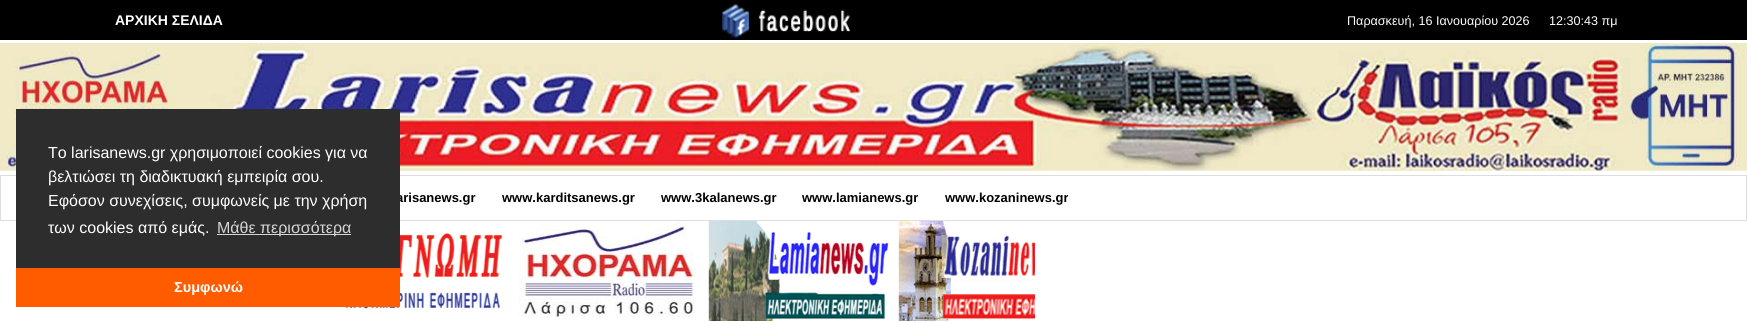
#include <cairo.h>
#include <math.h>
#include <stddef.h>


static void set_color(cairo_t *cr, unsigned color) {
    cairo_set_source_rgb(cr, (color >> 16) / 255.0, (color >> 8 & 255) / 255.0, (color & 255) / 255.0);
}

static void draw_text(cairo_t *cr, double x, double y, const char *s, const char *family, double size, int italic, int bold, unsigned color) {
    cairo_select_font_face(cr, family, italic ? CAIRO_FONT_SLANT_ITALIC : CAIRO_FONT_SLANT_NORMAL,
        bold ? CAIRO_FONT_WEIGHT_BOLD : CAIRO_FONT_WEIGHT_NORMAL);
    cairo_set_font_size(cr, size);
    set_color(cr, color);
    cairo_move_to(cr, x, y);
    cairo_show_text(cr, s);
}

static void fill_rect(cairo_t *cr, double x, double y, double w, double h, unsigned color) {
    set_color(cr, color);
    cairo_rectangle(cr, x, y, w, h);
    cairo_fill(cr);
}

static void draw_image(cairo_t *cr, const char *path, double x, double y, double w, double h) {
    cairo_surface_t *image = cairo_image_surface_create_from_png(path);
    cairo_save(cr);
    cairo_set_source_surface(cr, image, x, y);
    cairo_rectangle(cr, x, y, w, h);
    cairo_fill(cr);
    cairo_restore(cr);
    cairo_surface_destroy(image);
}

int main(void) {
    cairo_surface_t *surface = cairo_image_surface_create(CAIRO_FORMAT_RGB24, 1747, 323);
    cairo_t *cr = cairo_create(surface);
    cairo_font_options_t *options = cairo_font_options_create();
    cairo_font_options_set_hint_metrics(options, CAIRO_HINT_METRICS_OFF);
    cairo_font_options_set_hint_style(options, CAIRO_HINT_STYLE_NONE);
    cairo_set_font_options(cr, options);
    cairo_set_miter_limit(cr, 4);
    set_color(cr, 0xFFFFFF);
    cairo_paint(cr);
    fill_rect(cr, 0, 0, 1747, 40, 0x000000);
    draw_text(cr, 115, 25, "ΑΡΧΙΚΗ ΣΕΛΙΔΑ", "Liberation Sans", 14, 0, 1, 0xFFFFFF);
    draw_image(cr, "assets/img1.png", 722, 4, 129, 34);
    draw_text(cr, 1347, 25, "Παρασκευή, 16 Ιανουαρίου 2026", "Liberation Sans", 12.6, 0, 0, 0xFFFFFF);
    draw_text(cr, 1549, 25, "12:30:43 πμ", "Liberation Sans", 12.6, 0, 0, 0xFFFFFF);
    draw_image(cr, "assets/img2.png", 0, 43, 1747, 128);
    cairo_rectangle(cr, 0.5, 175.5, 1746, 45);
    set_color(cr, 0xDDDDDD);
    cairo_set_line_width(cr, 1);
    cairo_stroke(cr);
    draw_text(cr, 396, 202, "arisanews.gr", "Liberation Sans", 13, 0, 1, 0x000000);
    draw_text(cr, 502, 202, "www.karditsanews.gr", "Liberation Sans", 13, 0, 1, 0x000000);
    draw_text(cr, 661, 202, "www.3kalanews.gr", "Liberation Sans", 13, 0, 1, 0x000000);
    draw_text(cr, 802, 202, "www.lamianews.gr", "Liberation Sans", 13, 0, 1, 0x000000);
    draw_text(cr, 945, 202, "www.kozaninews.gr", "Liberation Sans", 13, 0, 1, 0x000000);
    draw_image(cr, "assets/img3.png", 334, 230, 169, 79);
    draw_image(cr, "assets/img4.png", 519, 221, 176, 96);
    draw_image(cr, "assets/img5.png", 708, 221, 181, 100);
    draw_image(cr, "assets/img6.png", 898, 221, 137, 100);
    fill_rect(cr, 16, 109, 384, 159, 0x2D2D2D);
    draw_text(cr, 48, 158, "Το larisanews.gr χρησιμοποιεί cookies για να", "Liberation Sans", 16, 0, 0, 0xFFFFFF);
    draw_text(cr, 48, 182, "βελτιώσει τη διαδικτυακή εμπειρία σου.", "Liberation Sans", 16, 0, 0, 0xFFFFFF);
    draw_text(cr, 48, 206, "Εφόσον συνεχίσεις, συμφωνείς με την χρήση", "Liberation Sans", 16, 0, 0, 0xFFFFFF);
    draw_text(cr, 48, 233, "των cookies από εμάς.", "Liberation Sans", 16, 0, 0, 0xFFFFFF);
    fill_rect(cr, 217, 234, 134, 1, 0xD5D5D5);
    draw_text(cr, 217, 233, "Μάθε περισσότερα", "Liberation Sans", 16, 0, 0, 0xD5D5D5);
    fill_rect(cr, 16, 268, 384, 39, 0xFF5C00);
    draw_text(cr, 174, 292, "Συμφωνώ", "Liberation Sans", 14.5, 0, 1, 0xFFFFFF);
    cairo_surface_write_to_png(surface, "output.png");
    cairo_font_options_destroy(options);
    cairo_destroy(cr);
    cairo_surface_destroy(surface);
    return 0;
}
